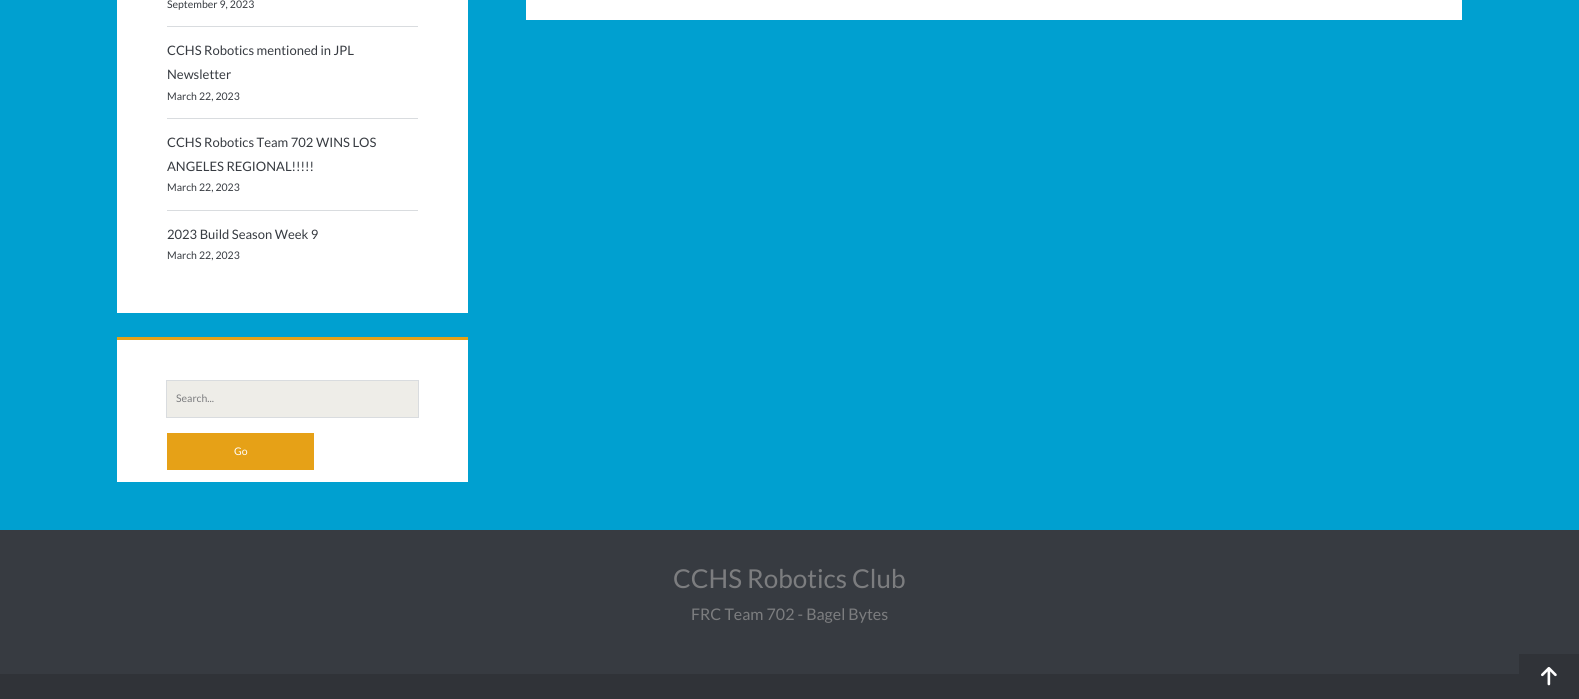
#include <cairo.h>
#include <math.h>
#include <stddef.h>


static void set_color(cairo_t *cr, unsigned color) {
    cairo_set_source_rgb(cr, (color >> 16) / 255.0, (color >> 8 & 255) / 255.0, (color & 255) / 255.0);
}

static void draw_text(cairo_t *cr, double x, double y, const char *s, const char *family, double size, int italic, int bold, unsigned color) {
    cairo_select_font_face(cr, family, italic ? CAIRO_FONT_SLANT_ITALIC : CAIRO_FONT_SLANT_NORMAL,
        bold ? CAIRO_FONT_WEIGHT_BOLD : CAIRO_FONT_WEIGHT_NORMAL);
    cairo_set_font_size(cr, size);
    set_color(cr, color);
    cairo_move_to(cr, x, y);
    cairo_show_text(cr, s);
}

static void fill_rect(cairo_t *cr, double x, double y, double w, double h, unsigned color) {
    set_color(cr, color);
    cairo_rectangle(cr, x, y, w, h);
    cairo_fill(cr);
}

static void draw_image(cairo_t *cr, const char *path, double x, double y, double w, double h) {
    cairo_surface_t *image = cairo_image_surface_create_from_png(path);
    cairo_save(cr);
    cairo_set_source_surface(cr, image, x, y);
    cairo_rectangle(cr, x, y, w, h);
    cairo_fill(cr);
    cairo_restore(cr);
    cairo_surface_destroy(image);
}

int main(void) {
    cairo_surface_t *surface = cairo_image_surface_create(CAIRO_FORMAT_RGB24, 1579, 699);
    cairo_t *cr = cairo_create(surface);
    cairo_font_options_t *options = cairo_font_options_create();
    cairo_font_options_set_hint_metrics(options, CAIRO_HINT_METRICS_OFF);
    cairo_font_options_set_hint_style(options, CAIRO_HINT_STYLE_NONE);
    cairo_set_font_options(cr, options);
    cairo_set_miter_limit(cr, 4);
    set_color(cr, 0x00A0D0);
    cairo_paint(cr);
    fill_rect(cr, 117, 0, 351, 313, 0xFFFFFF);
    fill_rect(cr, 167, 26, 251, 1, 0xD9DCDF);
    draw_text(cr, 167, 8, "September 9, 2023", "Lato", 10.5, 0, 0, 0x373B41);
    fill_rect(cr, 167, 118, 251, 1, 0xD9DCDF);
    draw_text(cr, 167, 55, "CCHS Robotics mentioned in JPL", "Lato", 13, 0, 0, 0x373B41);
    draw_text(cr, 167, 79, "Newsletter", "Lato", 13, 0, 0, 0x373B41);
    draw_text(cr, 167, 100, "March 22, 2023", "Lato", 10.5, 0, 0, 0x373B41);
    fill_rect(cr, 167, 210, 251, 1, 0xD9DCDF);
    draw_text(cr, 167, 147, "CCHS Robotics Team 702 WINS LOS", "Lato", 13, 0, 0, 0x373B41);
    draw_text(cr, 167, 171, "ANGELES REGIONAL!!!!!", "Lato", 13, 0, 0, 0x373B41);
    draw_text(cr, 167, 191, "March 22, 2023", "Lato", 10.5, 0, 0, 0x373B41);
    draw_text(cr, 167, 239, "2023 Build Season Week 9", "Lato", 13, 0, 0, 0x373B41);
    draw_text(cr, 167, 259, "March 22, 2023", "Lato", 10.5, 0, 0, 0x373B41);
    fill_rect(cr, 117, 340, 351, 142, 0xFFFFFF);
    fill_rect(cr, 117, 337, 351, 3, 0xE6A117);
    fill_rect(cr, 167, 381, 251, 36, 0xEEEDE8);
    cairo_rectangle(cr, 166.5, 380.5, 252, 37);
    set_color(cr, 0xD9DCDF);
    cairo_set_line_width(cr, 1);
    cairo_stroke(cr);
    draw_text(cr, 176, 402, "Search...", "Lato", 10.5, 0, 0, 0x7C7D7F);
    fill_rect(cr, 167, 433, 147, 37, 0xE6A117);
    draw_text(cr, 234, 455, "Go", "Lato", 10.5, 0, 0, 0xFFFFFF);
    fill_rect(cr, 526, 0, 936, 20, 0xFFFFFF);
    fill_rect(cr, 0, 530, 1579, 144, 0x373B41);
    draw_text(cr, 673, 588, "CCHS Robotics Club", "Lato", 26, 0, 0, 0x7C7D7F);
    draw_text(cr, 691, 620, "FRC Team 702 - Bagel Bytes", "Lato", 16, 0, 0, 0x7C7D7F);
    fill_rect(cr, 0, 674, 1519, 25, 0x303338);
    fill_rect(cr, 1519, 654, 60, 45, 0x303338);
    draw_image(cr, "assets/img1.png", 1541, 667, 16, 19);
    cairo_surface_write_to_png(surface, "output.png");
    cairo_font_options_destroy(options);
    cairo_destroy(cr);
    cairo_surface_destroy(surface);
    return 0;
}
